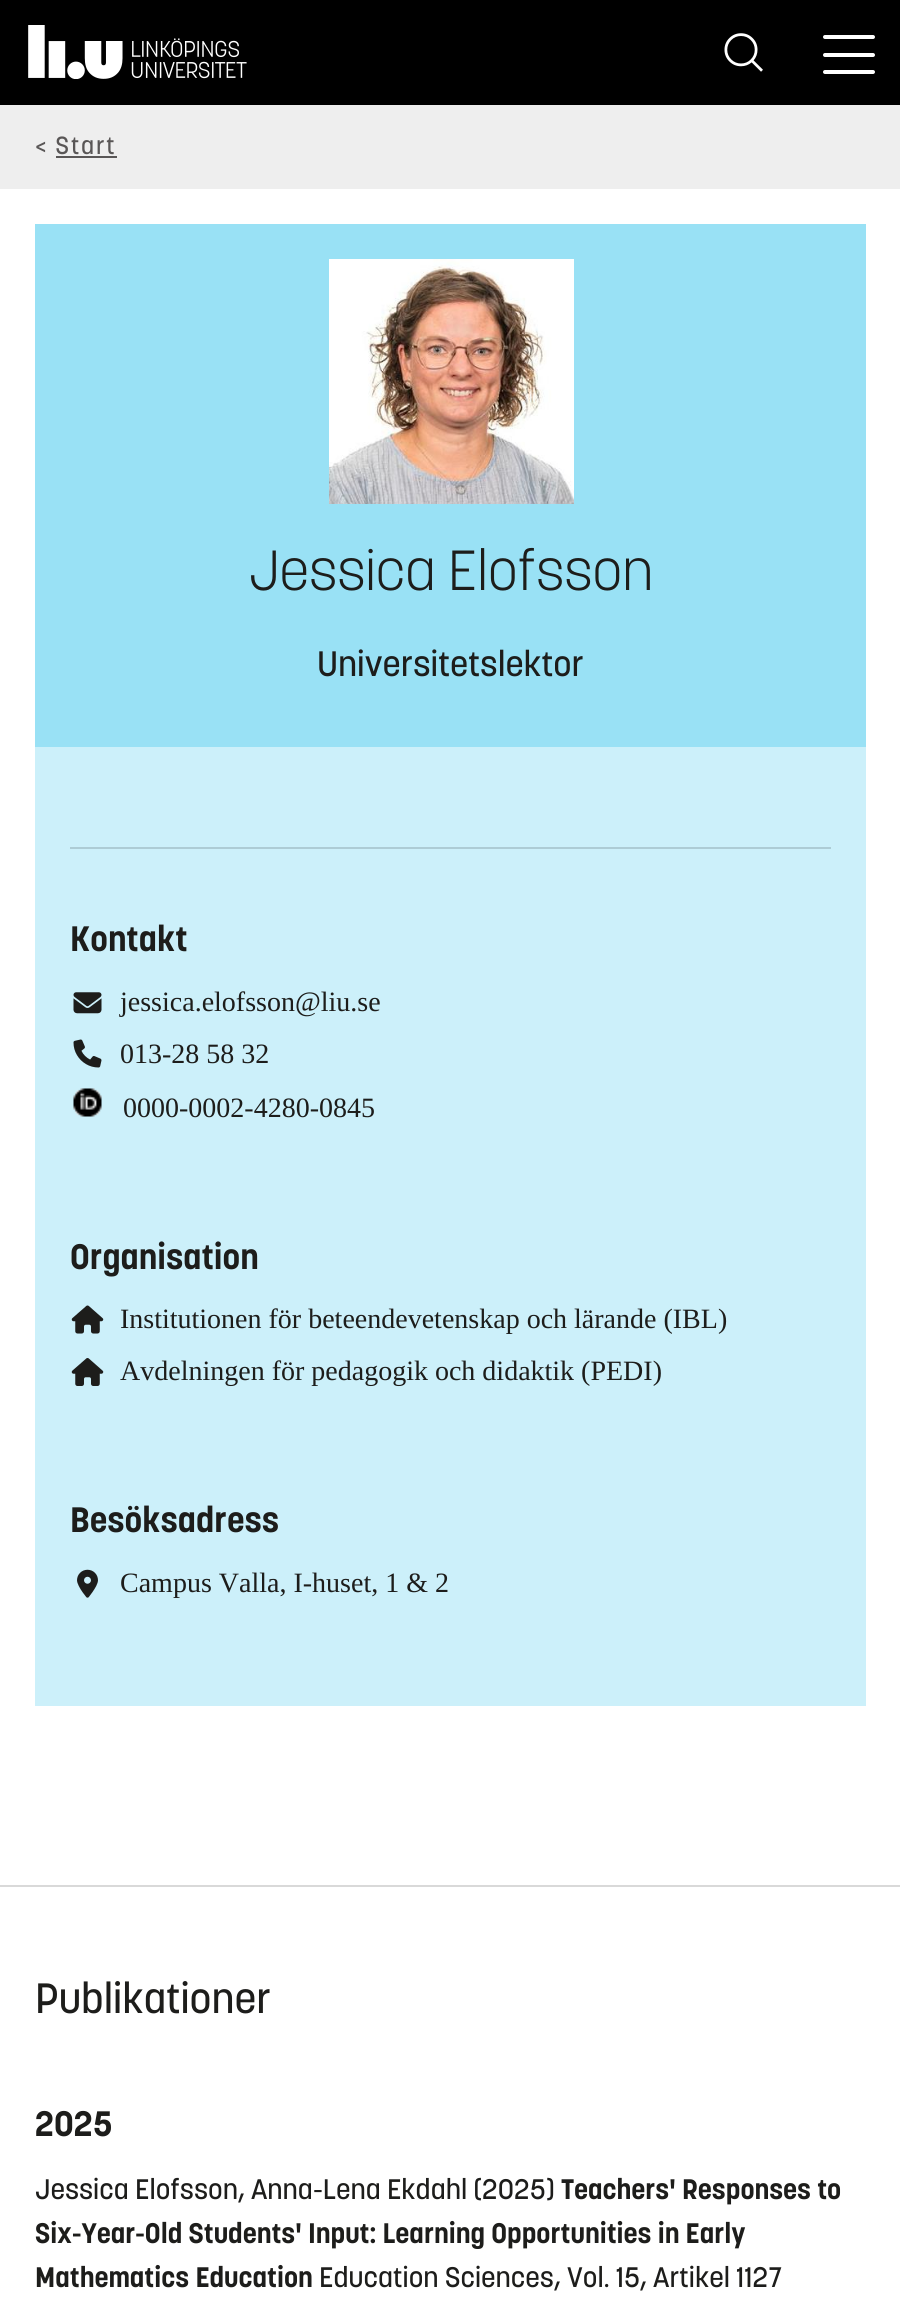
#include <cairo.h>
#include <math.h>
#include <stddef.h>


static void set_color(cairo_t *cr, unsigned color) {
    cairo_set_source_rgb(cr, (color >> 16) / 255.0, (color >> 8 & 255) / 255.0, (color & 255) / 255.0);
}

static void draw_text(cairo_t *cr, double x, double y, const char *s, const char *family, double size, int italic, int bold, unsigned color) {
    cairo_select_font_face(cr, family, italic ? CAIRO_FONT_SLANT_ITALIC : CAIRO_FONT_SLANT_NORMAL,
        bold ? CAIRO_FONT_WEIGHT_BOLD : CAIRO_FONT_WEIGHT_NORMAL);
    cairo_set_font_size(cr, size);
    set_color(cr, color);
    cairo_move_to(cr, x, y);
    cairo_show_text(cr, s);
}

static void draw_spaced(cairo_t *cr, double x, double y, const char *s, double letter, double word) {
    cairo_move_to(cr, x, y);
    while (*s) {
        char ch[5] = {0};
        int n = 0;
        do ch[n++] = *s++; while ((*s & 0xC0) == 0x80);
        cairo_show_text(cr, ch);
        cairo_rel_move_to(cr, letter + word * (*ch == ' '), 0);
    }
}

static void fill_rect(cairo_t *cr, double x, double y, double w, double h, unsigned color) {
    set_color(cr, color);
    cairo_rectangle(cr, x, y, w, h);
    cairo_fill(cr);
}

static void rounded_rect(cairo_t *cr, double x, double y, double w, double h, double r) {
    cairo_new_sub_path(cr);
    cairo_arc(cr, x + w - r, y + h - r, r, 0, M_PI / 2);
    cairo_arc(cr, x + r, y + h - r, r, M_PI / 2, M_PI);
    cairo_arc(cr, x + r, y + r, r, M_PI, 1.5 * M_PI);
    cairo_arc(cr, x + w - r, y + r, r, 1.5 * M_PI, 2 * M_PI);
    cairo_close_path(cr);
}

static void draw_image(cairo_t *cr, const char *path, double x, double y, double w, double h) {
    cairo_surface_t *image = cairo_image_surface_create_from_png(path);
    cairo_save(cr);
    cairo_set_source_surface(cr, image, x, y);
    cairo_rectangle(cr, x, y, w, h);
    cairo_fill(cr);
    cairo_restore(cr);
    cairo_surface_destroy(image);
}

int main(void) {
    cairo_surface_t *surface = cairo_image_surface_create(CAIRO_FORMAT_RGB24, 900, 2308);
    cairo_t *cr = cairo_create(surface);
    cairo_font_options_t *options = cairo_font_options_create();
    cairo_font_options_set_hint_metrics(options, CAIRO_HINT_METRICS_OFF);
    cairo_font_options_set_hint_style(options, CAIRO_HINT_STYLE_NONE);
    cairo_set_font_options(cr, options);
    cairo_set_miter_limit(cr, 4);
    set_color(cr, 0xFFFFFF);
    cairo_paint(cr);
    fill_rect(cr, 0, 0, 900, 105, 0x000000);
    draw_image(cr, "assets/img1.png", 28, 25, 219, 54);
    draw_image(cr, "assets/img2.png", 724, 33, 39, 39);
    set_color(cr, 0xFFFFFF);
    rounded_rect(cr, 823, 35, 52, 4, 2);
    cairo_fill(cr);
    rounded_rect(cr, 823, 53, 52, 4, 2);
    cairo_fill(cr);
    rounded_rect(cr, 823, 70, 52, 4, 2);
    cairo_fill(cr);
    fill_rect(cr, 0, 105, 900, 84, 0xEEEEEE);
    cairo_select_font_face(cr, "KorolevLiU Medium", CAIRO_FONT_SLANT_NORMAL, CAIRO_FONT_WEIGHT_NORMAL);
    cairo_set_font_size(cr, 24.5);
    set_color(cr, 0x595656);
    draw_spaced(cr, 35, 154, "< Start", 1.75, 0);
    fill_rect(cr, 56, 156, 61, 2, 0x595656);
    fill_rect(cr, 35, 747, 831, 959, 0xCCF0FA);
    fill_rect(cr, 35, 224, 831, 523, 0x99E1F5);
    draw_image(cr, "assets/img3.png", 329, 259, 245, 245);
    draw_text(cr, 249, 590, "Jessica Elofsson", "KorolevLiU Light", 56, 0, 0, 0x1D1D1B);
    draw_text(cr, 317, 676, "Universitetslektor", "KorolevLiU Medium", 35, 0, 0, 0x1D1D1B);
    fill_rect(cr, 70, 847, 761, 2, 0xADCCD5);
    draw_text(cr, 70, 951, "Kontakt", "KorolevLiU", 35, 0, 1, 0x1D1D1B);
    draw_image(cr, "assets/img4.png", 73, 992, 29, 22);
    draw_text(cr, 120, 1011, "jessica.elofsson@liu.se", "Liberation Serif", 28, 0, 0, 0x1D1D1B);
    draw_image(cr, "assets/img5.png", 73, 1039, 29, 29);
    draw_text(cr, 120, 1063, "013-28 58 32", "Liberation Serif", 28, 0, 0, 0x1D1D1B);
    draw_image(cr, "assets/img6.png", 73, 1088, 29, 29);
    draw_text(cr, 123, 1117, "0000-0002-4280-0845", "Liberation Serif", 28, 0, 0, 0x1D1D1B);
    draw_text(cr, 70, 1269, "Organisation", "KorolevLiU", 35, 0, 1, 0x1D1D1B);
    draw_image(cr, "assets/img7.png", 71, 1305, 33, 29);
    draw_text(cr, 120, 1328, "Institutionen för beteendevetenskap och lärande (IBL)", "Liberation Serif", 28, 0, 0, 0x1D1D1B);
    draw_image(cr, "assets/img8.png", 71, 1358, 33, 28);
    draw_text(cr, 120, 1380, "Avdelningen för pedagogik och didaktik (PEDI)", "Liberation Serif", 28, 0, 0, 0x1D1D1B);
    draw_text(cr, 70, 1532, "Besöksadress", "KorolevLiU", 35, 0, 1, 0x1D1D1B);
    draw_image(cr, "assets/img9.png", 77, 1569, 21, 29);
    draw_text(cr, 120, 1592, "Campus Valla, I-huset, 1 & 2", "Liberation Serif", 28, 0, 0, 0x1D1D1B);
    fill_rect(cr, 0, 1885, 900, 2, 0xD9D9D9);
    draw_text(cr, 35, 2013, "Publikationer", "KorolevLiU Medium", 42, 0, 0, 0x1D1D1B);
    draw_text(cr, 35, 2136, "2025", "KorolevLiU", 35, 0, 1, 0x1D1D1B);
    draw_text(cr, 35, 2199, "Jessica Elofsson, Anna-Lena Ekdahl (2025)", "KorolevLiU Medium", 28, 0, 0, 0x1D1D1B);
    draw_text(cr, 561, 2199, "Teachers' Responses to", "KorolevLiU", 28, 0, 1, 0x1D1D1B);
    draw_text(cr, 35, 2243, "Six-Year-Old Students' Input: Learning Opportunities in Early", "KorolevLiU", 28, 0, 1, 0x1D1D1B);
    draw_text(cr, 35, 2287, "Mathematics Education", "KorolevLiU", 28, 0, 1, 0x1D1D1B);
    draw_text(cr, 319, 2287, "Education Sciences, Vol. 15, Artikel 1127", "KorolevLiU Medium", 28, 0, 0, 0x1D1D1B);
    cairo_surface_write_to_png(surface, "output.png");
    cairo_font_options_destroy(options);
    cairo_destroy(cr);
    cairo_surface_destroy(surface);
    return 0;
}
